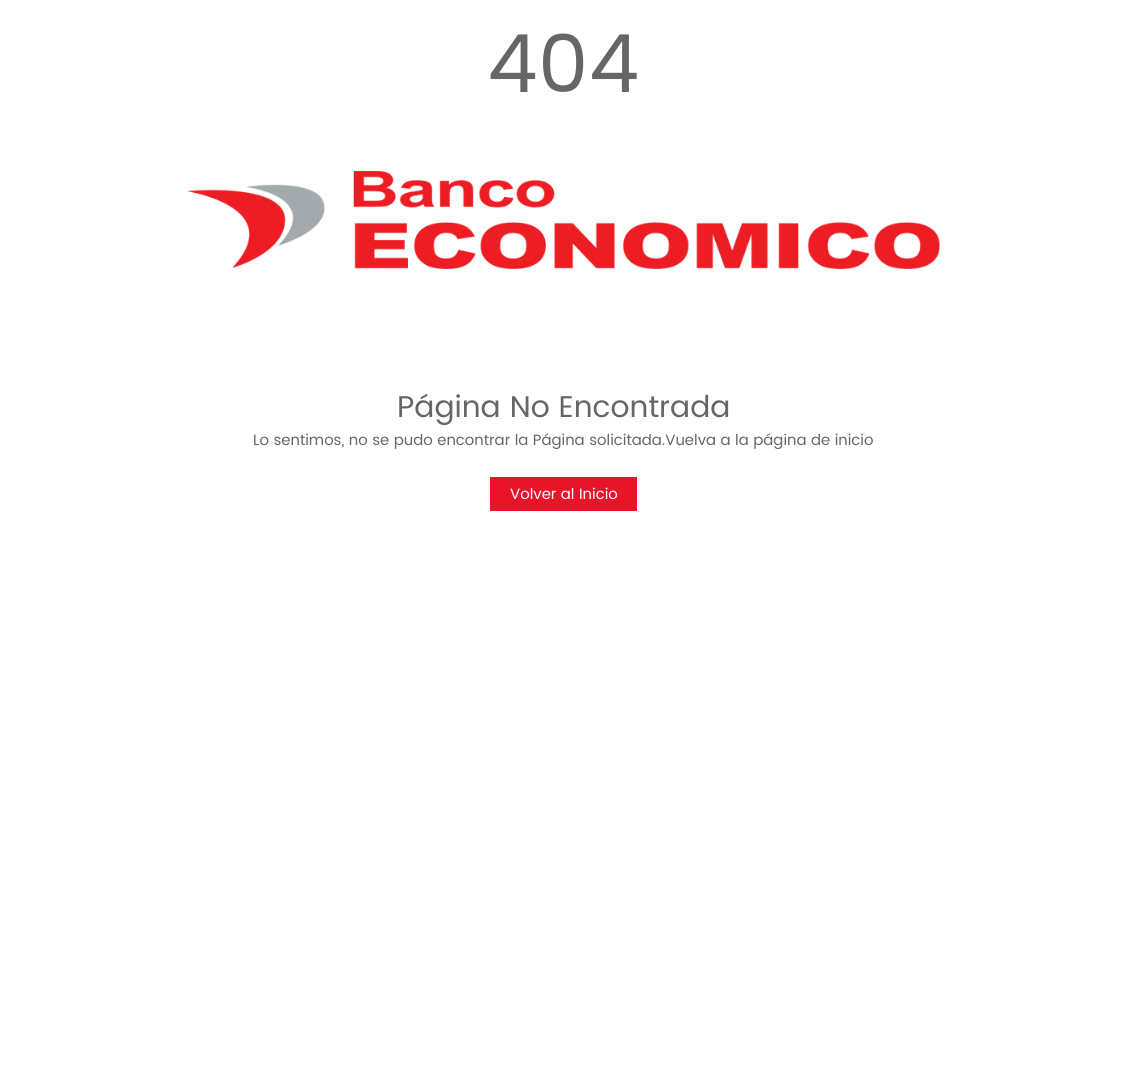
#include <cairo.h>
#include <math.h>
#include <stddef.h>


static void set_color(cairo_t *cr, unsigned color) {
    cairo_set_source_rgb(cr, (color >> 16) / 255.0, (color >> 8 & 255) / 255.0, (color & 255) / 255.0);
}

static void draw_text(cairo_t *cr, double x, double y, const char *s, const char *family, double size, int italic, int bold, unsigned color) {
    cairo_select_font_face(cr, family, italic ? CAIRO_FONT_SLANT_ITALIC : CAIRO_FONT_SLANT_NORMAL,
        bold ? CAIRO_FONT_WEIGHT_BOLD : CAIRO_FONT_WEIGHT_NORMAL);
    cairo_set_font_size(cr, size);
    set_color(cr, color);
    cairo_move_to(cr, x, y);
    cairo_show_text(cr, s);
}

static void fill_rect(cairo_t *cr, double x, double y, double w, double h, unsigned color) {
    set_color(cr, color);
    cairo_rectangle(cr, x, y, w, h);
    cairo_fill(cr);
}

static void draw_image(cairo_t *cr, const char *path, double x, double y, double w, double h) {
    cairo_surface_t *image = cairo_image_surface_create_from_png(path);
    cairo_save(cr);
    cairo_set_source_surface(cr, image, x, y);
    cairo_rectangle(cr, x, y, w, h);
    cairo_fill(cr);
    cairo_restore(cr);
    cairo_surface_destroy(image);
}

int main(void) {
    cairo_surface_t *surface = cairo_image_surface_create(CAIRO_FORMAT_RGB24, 1127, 1081);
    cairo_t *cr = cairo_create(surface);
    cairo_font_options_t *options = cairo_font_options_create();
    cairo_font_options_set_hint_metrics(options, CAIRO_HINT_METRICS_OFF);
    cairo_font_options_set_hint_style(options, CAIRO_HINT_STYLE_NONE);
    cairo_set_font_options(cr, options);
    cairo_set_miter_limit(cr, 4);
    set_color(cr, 0xFFFFFF);
    cairo_paint(cr);
    draw_image(cr, "assets/img1.png", 187, 171, 753, 98);
    draw_text(cr, 487, 92, "404", "Poppins", 80, 0, 0, 0x666666);
    draw_text(cr, 397, 417, "Página No Encontrada", "Poppins", 30, 0, 0, 0x666666);
    draw_text(cr, 253, 445, "Lo sentimos, no se pudo encontrar la Página solicitada.Vuelva a la página de inicio", "Poppins", 15, 0, 0, 0x666666);
    fill_rect(cr, 490, 477, 147, 34, 0xE7142A);
    draw_text(cr, 510, 499, "Volver al Inicio", "Poppins", 15, 0, 0, 0xFFFFFF);
    cairo_surface_write_to_png(surface, "output.png");
    cairo_font_options_destroy(options);
    cairo_destroy(cr);
    cairo_surface_destroy(surface);
    return 0;
}
